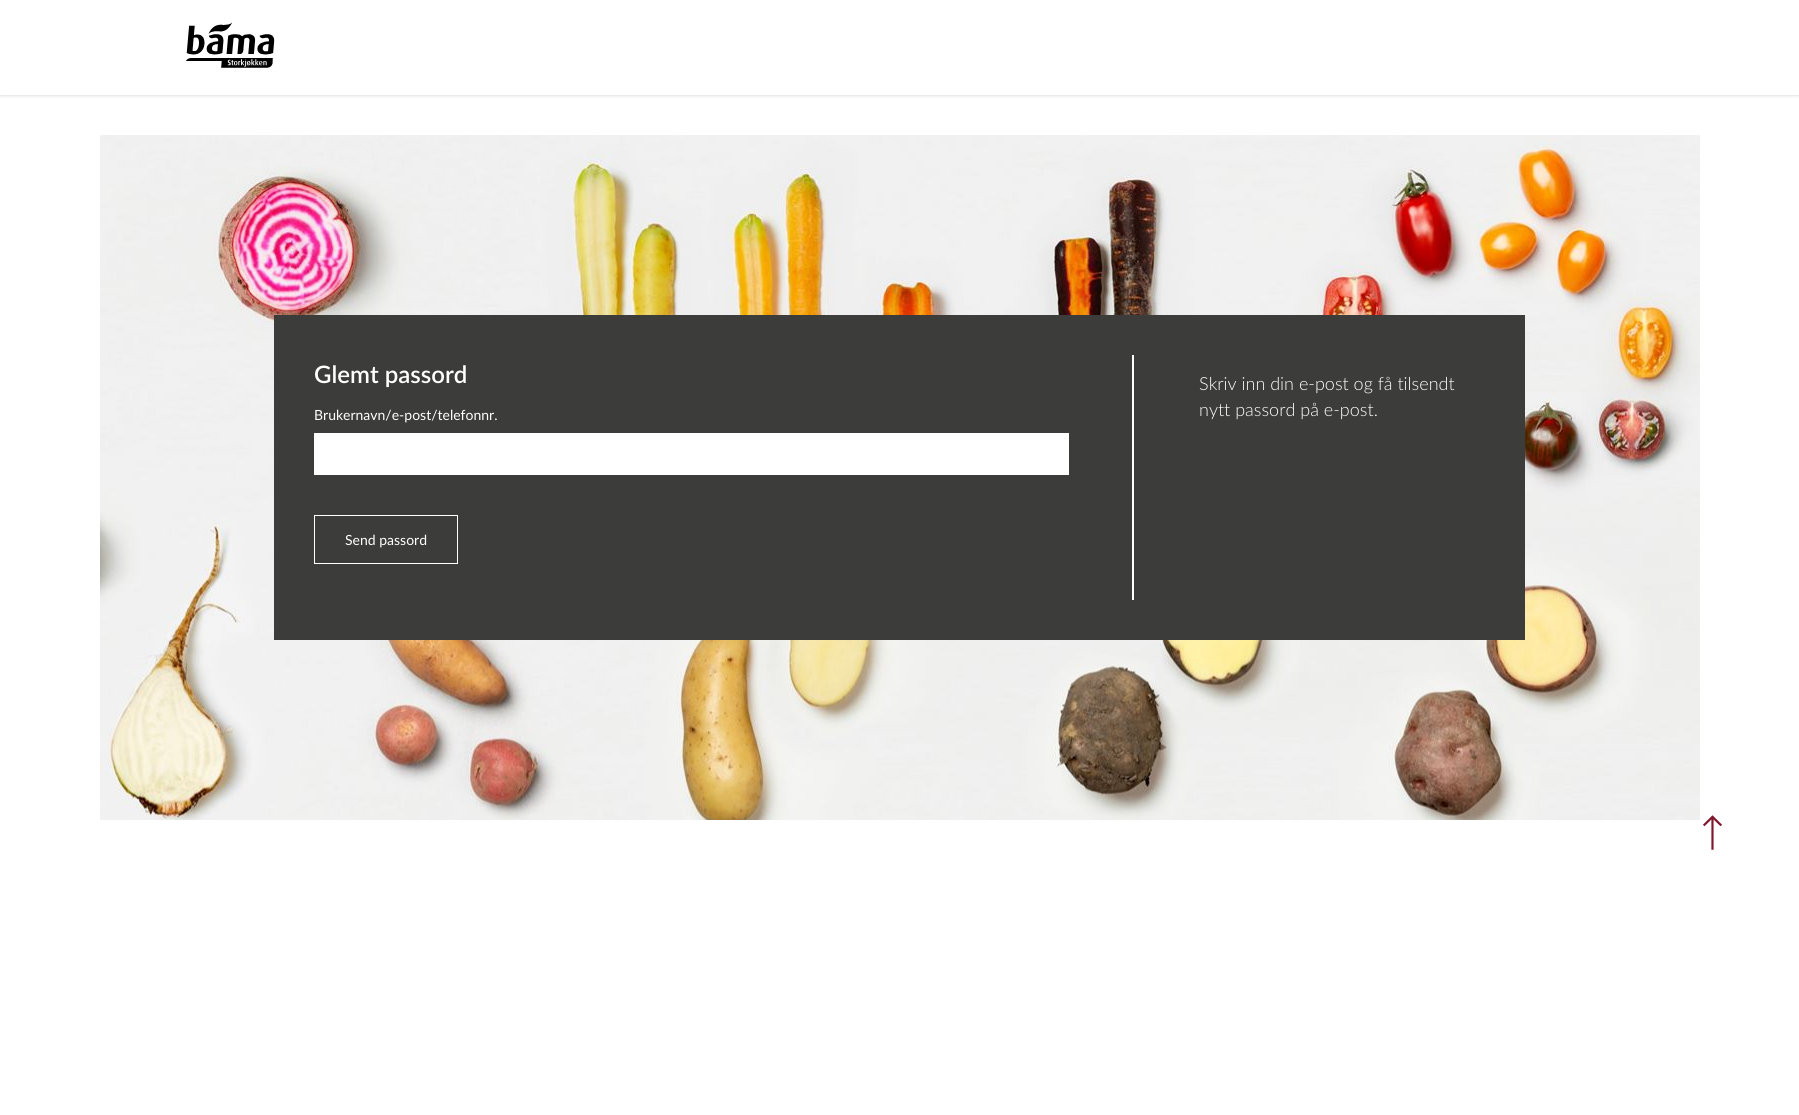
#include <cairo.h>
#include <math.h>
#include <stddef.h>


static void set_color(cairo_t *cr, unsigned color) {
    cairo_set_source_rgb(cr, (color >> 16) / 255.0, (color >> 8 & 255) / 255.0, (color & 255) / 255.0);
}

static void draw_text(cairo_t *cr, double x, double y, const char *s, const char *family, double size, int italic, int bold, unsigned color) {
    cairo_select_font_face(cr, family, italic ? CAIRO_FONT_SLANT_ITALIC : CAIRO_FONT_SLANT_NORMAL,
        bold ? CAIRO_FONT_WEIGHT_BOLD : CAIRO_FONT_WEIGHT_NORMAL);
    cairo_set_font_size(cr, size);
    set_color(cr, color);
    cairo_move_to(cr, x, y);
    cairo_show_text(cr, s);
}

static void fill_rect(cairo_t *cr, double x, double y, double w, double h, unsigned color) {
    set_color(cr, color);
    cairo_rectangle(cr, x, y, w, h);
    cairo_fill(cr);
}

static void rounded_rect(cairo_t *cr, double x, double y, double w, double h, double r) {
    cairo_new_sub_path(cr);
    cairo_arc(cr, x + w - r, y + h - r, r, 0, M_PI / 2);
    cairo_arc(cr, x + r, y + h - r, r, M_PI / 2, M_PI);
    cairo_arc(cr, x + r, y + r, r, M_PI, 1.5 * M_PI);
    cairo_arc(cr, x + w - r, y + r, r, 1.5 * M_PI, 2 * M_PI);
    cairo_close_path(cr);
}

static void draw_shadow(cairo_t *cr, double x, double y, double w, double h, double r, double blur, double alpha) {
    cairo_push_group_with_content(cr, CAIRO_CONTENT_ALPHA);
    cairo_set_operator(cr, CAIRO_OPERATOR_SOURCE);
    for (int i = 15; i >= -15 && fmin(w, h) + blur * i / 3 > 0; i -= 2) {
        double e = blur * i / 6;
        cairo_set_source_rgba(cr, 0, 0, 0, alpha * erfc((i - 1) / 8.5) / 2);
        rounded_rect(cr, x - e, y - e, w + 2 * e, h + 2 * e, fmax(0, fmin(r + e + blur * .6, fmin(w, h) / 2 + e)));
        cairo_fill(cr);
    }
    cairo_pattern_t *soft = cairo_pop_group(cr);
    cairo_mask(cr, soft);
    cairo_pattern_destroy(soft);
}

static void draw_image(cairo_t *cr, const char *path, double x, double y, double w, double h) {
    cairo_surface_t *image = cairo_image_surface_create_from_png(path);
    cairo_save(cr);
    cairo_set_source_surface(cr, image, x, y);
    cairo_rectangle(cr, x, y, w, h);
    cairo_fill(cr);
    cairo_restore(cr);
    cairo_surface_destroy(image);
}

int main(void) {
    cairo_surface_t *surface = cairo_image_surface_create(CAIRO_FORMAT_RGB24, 1799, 1115);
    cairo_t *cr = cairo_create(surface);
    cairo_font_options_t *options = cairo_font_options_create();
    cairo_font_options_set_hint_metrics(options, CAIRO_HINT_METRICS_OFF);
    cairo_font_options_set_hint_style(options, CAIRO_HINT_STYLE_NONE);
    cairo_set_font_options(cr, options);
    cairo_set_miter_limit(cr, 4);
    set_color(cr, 0xFFFFFF);
    cairo_paint(cr);
    cairo_save(cr);
    cairo_rectangle(cr, 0, 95, 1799, 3);
    cairo_clip(cr);
    set_color(cr, 0x000000);
    draw_shadow(cr, 0, 0, 1799, 95, 0, 2, 0.2);
    cairo_restore(cr);
    draw_image(cr, "assets/img1.png", 186, 22, 89, 46);
    draw_image(cr, "assets/img2.png", 100, 135, 1600, 685);
    fill_rect(cr, 274, 315, 1251, 325, 0x3C3C3B);
    draw_text(cr, 314, 383, "Glemt passord", "Lato SemiBold", 24, 0, 0, 0xFFFFFF);
    fill_rect(cr, 1132, 355, 2, 245, 0xFFFFFF);
    draw_text(cr, 314, 420, "Brukernavn/e-post/telefonnr.", "Lato", 14, 0, 0, 0xFFFFFF);
    fill_rect(cr, 314, 433, 755, 42, 0xFFFFFF);
    cairo_rectangle(cr, 314.5, 515.5, 143, 48);
    cairo_set_line_width(cr, 1);
    cairo_stroke(cr);
    draw_text(cr, 345, 545, "Send passord", "Lato", 14, 0, 0, 0xFFFFFF);
    draw_text(cr, 1199, 390, "Skriv inn din e-post og få tilsendt", "Lato Light", 18, 0, 0, 0xFFFFFF);
    draw_text(cr, 1199, 416, "nytt passord på e-post.", "Lato Light", 18, 0, 0, 0xFFFFFF);
    draw_image(cr, "assets/img3.png", 1703, 815, 19, 35);
    cairo_surface_write_to_png(surface, "output.png");
    cairo_font_options_destroy(options);
    cairo_destroy(cr);
    cairo_surface_destroy(surface);
    return 0;
}
